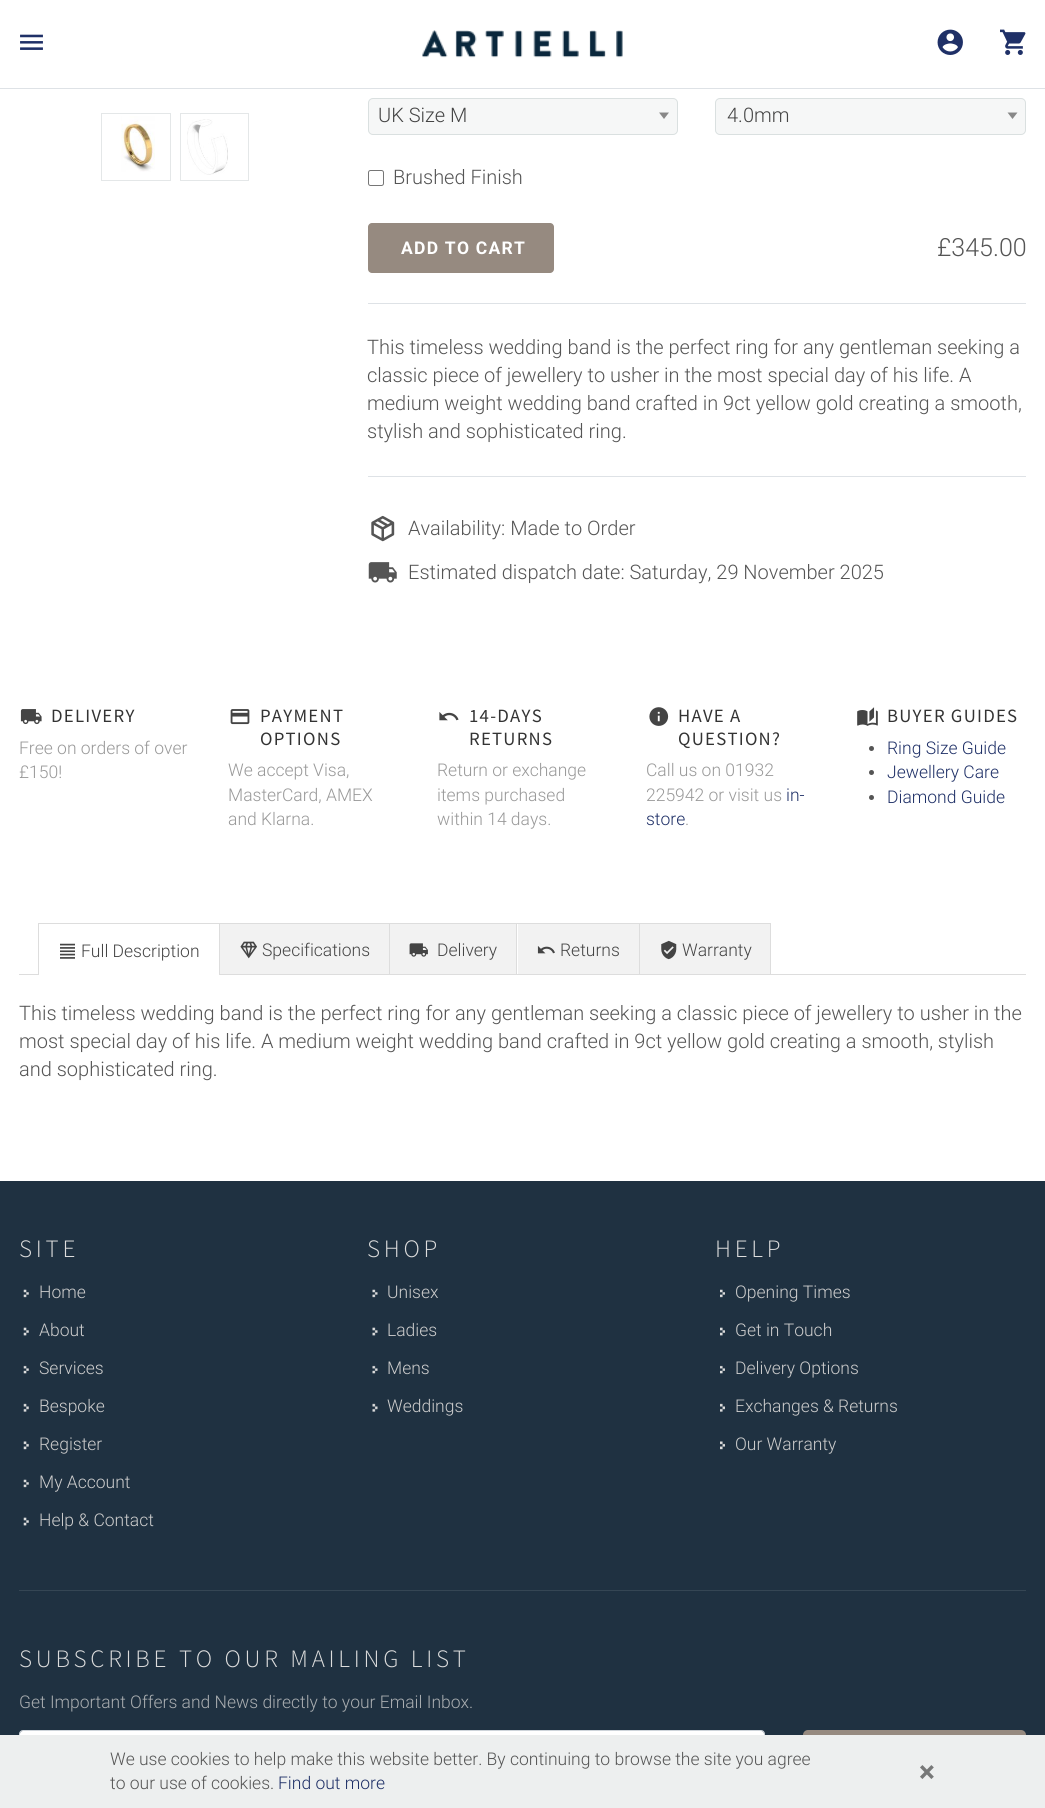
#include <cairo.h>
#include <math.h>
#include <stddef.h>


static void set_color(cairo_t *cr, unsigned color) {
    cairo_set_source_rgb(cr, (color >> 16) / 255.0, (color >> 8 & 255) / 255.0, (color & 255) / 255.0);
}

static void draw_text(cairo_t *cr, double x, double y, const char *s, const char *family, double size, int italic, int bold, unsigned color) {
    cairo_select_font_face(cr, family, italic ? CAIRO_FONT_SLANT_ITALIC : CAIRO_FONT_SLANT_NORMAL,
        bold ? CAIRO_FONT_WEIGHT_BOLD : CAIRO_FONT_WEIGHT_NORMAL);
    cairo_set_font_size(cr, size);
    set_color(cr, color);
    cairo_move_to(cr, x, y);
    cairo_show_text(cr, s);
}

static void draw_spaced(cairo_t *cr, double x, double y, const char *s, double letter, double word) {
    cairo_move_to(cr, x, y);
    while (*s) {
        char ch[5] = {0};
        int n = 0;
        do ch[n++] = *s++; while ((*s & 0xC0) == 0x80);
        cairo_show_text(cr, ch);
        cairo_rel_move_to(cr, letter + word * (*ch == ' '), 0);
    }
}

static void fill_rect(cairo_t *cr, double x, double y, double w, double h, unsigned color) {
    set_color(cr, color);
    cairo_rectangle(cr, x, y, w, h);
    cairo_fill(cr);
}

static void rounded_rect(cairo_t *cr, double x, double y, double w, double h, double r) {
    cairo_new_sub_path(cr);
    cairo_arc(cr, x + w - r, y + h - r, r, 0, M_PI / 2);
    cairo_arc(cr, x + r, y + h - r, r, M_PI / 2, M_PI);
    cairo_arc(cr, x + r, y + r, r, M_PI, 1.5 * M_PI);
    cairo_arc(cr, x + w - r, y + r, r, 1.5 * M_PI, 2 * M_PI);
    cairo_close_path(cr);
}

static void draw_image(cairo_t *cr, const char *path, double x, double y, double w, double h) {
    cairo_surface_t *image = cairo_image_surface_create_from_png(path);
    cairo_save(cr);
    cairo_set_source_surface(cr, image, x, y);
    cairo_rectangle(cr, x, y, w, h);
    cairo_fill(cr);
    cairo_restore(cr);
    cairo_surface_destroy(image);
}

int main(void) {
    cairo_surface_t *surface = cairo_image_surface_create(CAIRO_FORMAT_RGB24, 1045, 1808);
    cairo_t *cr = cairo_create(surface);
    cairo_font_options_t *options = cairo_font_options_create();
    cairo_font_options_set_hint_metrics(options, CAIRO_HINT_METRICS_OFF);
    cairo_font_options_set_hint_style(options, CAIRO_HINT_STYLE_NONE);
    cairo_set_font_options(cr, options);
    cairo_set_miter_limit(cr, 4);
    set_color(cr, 0xFFFFFF);
    cairo_paint(cr);
    fill_rect(cr, 0, 88, 1045, 1, 0xDEE2E6);
    draw_image(cr, "assets/img1.png", 20, 34, 23, 16);
    draw_image(cr, "assets/img2.png", 422, 30, 201, 28);
    draw_image(cr, "assets/img3.png", 937, 29, 26, 26);
    draw_image(cr, "assets/img4.png", 1000, 29, 26, 26);
    cairo_rectangle(cr, 101.5, 113.5, 69, 67);
    set_color(cr, 0xE4E7E8);
    cairo_set_line_width(cr, 1);
    cairo_stroke(cr);
    draw_image(cr, "assets/img5.png", 121, 116, 34, 56);
    cairo_rectangle(cr, 180.5, 113.5, 68, 67);
    cairo_stroke(cr);
    draw_image(cr, "assets/img6.png", 187, 119, 41, 56);
    set_color(cr, 0xF6F7F7);
    rounded_rect(cr, 368.5, 98.5, 309, 36, 4.5);
    cairo_fill_preserve(cr);
    set_color(cr, 0xDAE0E0);
    cairo_stroke(cr);
    draw_text(cr, 378, 122, "UK Size M", "Roboto Light", 20, 0, 0, 0x444444);
    set_color(cr, 0x888888);
    cairo_new_path(cr);
    cairo_move_to(cr, 659, 112.5);
    cairo_line_to(cr, 669, 112.5);
    cairo_line_to(cr, 664, 119);
    cairo_close_path(cr);
    cairo_fill(cr);
    set_color(cr, 0xF6F7F7);
    rounded_rect(cr, 715.5, 98.5, 310, 36, 4.5);
    cairo_fill_preserve(cr);
    set_color(cr, 0xDAE0E0);
    cairo_stroke(cr);
    draw_text(cr, 727, 122, "4.0mm", "Roboto Light", 20, 0, 0, 0x444444);
    set_color(cr, 0x888888);
    cairo_new_path(cr);
    cairo_move_to(cr, 1007.5, 112.5);
    cairo_line_to(cr, 1017.5, 112.5);
    cairo_line_to(cr, 1012.5, 119);
    cairo_close_path(cr);
    cairo_fill(cr);
    rounded_rect(cr, 368.5, 170.5, 15, 15, 2);
    set_color(cr, 0x767676);
    cairo_stroke(cr);
    draw_text(cr, 393, 184, "Brushed Finish", "Roboto Light", 20, 0, 0, 0x555555);
    set_color(cr, 0x968A80);
    rounded_rect(cr, 368, 223, 186, 50, 4);
    cairo_fill(cr);
    cairo_select_font_face(cr, "Roboto", CAIRO_FONT_SLANT_NORMAL, CAIRO_FONT_WEIGHT_BOLD);
    cairo_set_font_size(cr, 17.5);
    set_color(cr, 0xFFFFFF);
    draw_spaced(cr, 401, 254, "ADD TO CART", 1.25, 0);
    draw_text(cr, 937, 256, "£345.00", "Roboto Light", 25, 0, 0, 0x555555);
    fill_rect(cr, 368, 303, 658, 1, 0xDEE2E6);
    draw_text(cr, 367, 354, "This timeless wedding band is the perfect ring for any gentleman seeking a", "Roboto Light", 20, 0, 0, 0x555555);
    draw_text(cr, 367, 382, "classic piece of jewellery to usher in the most special day of his life. A", "Roboto Light", 20, 0, 0, 0x555555);
    draw_text(cr, 367, 410, "medium weight wedding band crafted in 9ct yellow gold creating a smooth,", "Roboto Light", 20, 0, 0, 0x555555);
    draw_text(cr, 367, 438, "stylish and sophisticated ring.", "Roboto Light", 20, 0, 0, 0x555555);
    fill_rect(cr, 368, 476, 658, 1, 0xDEE2E6);
    draw_image(cr, "assets/img7.png", 371, 515, 24, 27);
    draw_text(cr, 408, 535, "Availability: Made to Order", "Roboto Light", 20, 0, 0, 0x555555);
    draw_image(cr, "assets/img8.png", 368, 562, 29, 21);
    draw_text(cr, 408, 579, "Estimated dispatch date: Saturday, 29 November 2025", "Roboto Light", 20, 0, 0, 0x555555);
    draw_image(cr, "assets/img9.png", 20, 709, 22, 16);
    cairo_select_font_face(cr, "Source Sans Pro", CAIRO_FONT_SLANT_NORMAL, CAIRO_FONT_WEIGHT_NORMAL);
    cairo_set_font_size(cr, 18.75);
    set_color(cr, 0x333333);
    draw_spaced(cr, 51, 722, "DELIVERY", 1.25, 0);
    draw_text(cr, 19, 754, "Free on orders of over", "Roboto Light", 17.5, 0, 0, 0x999999);
    draw_text(cr, 19, 778, "£150!", "Roboto Light", 17.5, 0, 0, 0x999999);
    draw_image(cr, "assets/img10.png", 230, 709, 20, 16);
    cairo_select_font_face(cr, "Source Sans Pro", CAIRO_FONT_SLANT_NORMAL, CAIRO_FONT_WEIGHT_NORMAL);
    cairo_set_font_size(cr, 18.75);
    set_color(cr, 0x333333);
    draw_spaced(cr, 260, 722, "PAYMENT", 1.25, 0);
    draw_spaced(cr, 260, 745, "OPTIONS", 1.25, 0);
    draw_text(cr, 228, 776, "We accept Visa,", "Roboto Light", 17.5, 0, 0, 0x999999);
    draw_text(cr, 228, 801, "MasterCard, AMEX", "Roboto Light", 17.5, 0, 0, 0x999999);
    draw_text(cr, 228, 825, "and Klarna.", "Roboto Light", 17.5, 0, 0, 0x999999);
    draw_image(cr, "assets/img11.png", 439, 712, 20, 9);
    cairo_select_font_face(cr, "Source Sans Pro", CAIRO_FONT_SLANT_NORMAL, CAIRO_FONT_WEIGHT_NORMAL);
    cairo_set_font_size(cr, 18.75);
    set_color(cr, 0x333333);
    draw_spaced(cr, 469, 722, "14-DAYS", 1.25, 0);
    draw_spaced(cr, 469, 745, "RETURNS", 1.25, 0);
    draw_text(cr, 437, 776, "Return or exchange", "Roboto Light", 17.5, 0, 0, 0x999999);
    draw_text(cr, 437, 801, "items purchased", "Roboto Light", 17.5, 0, 0, 0x999999);
    draw_text(cr, 437, 825, "within 14 days.", "Roboto Light", 17.5, 0, 0, 0x999999);
    draw_image(cr, "assets/img12.png", 649, 707, 20, 19);
    cairo_select_font_face(cr, "Source Sans Pro", CAIRO_FONT_SLANT_NORMAL, CAIRO_FONT_WEIGHT_NORMAL);
    cairo_set_font_size(cr, 18.75);
    set_color(cr, 0x333333);
    draw_spaced(cr, 678, 722, "HAVE A", 1.25, 0);
    draw_spaced(cr, 678, 745, "QUESTION?", 1.25, 0);
    draw_text(cr, 646, 776, "Call us on 01932", "Roboto Light", 17.5, 0, 0, 0x999999);
    draw_text(cr, 646, 801, "225942 or visit us", "Roboto Light", 17.5, 0, 0, 0x999999);
    draw_text(cr, 786, 801, "in-", "Roboto Light", 17.5, 0, 0, 0x1F3067);
    draw_text(cr, 646, 825, "store", "Roboto Light", 17.5, 0, 0, 0x1F3067);
    draw_text(cr, 685, 825, ".", "Roboto Light", 17.5, 0, 0, 0x999999);
    draw_image(cr, "assets/img13.png", 857, 707, 21, 19);
    cairo_select_font_face(cr, "Source Sans Pro", CAIRO_FONT_SLANT_NORMAL, CAIRO_FONT_WEIGHT_NORMAL);
    cairo_set_font_size(cr, 18.75);
    set_color(cr, 0x333333);
    draw_spaced(cr, 887, 722, "BUYER GUIDES", 1.25, 0);
    set_color(cr, 0x555555);
    cairo_new_path(cr);
    cairo_arc(cr, 871.5, 748.5, 2.5, 0, 2 * M_PI);
    cairo_fill(cr);
    draw_text(cr, 887, 754, "Ring Size Guide", "Roboto Light", 17.5, 0, 0, 0x1F3067);
    set_color(cr, 0x555555);
    cairo_new_path(cr);
    cairo_arc(cr, 871.5, 772.5, 2.5, 0, 2 * M_PI);
    cairo_fill(cr);
    draw_text(cr, 887, 778, "Jewellery Care", "Roboto Light", 17.5, 0, 0, 0x1F3067);
    set_color(cr, 0x555555);
    cairo_new_path(cr);
    cairo_arc(cr, 871.5, 797.5, 2.5, 0, 2 * M_PI);
    cairo_fill(cr);
    draw_text(cr, 887, 803, "Diamond Guide", "Roboto Light", 17.5, 0, 0, 0x1F3067);
    fill_rect(cr, 19, 974, 1007, 1, 0xDDDDDD);
    fill_rect(cr, 38, 923, 733, 1, 0xDDDDDD);
    fill_rect(cr, 219, 923, 1, 51, 0xDDDDDD);
    fill_rect(cr, 38, 923, 1, 51, 0xDDDDDD);
    fill_rect(cr, 39, 974, 180, 1, 0xFFFFFF);
    draw_image(cr, "assets/img14.png", 60, 943, 15, 16);
    draw_text(cr, 81, 957, "Full Description", "Roboto Light", 17.5, 0, 0, 0x444444);
    fill_rect(cr, 389, 923, 1, 51, 0xDDDDDD);
    fill_rect(cr, 220, 924, 169, 50, 0xF2F2F2);
    draw_image(cr, "assets/img15.png", 240, 941, 17, 18);
    draw_text(cr, 262, 956, "Specifications", "Roboto Light", 17.5, 0, 0, 0x444444);
    fill_rect(cr, 516, 923, 1, 51, 0xDDDDDD);
    fill_rect(cr, 390, 924, 126, 50, 0xF2F2F2);
    draw_image(cr, "assets/img16.png", 409, 943, 19, 14);
    draw_text(cr, 437, 956, "Delivery", "Roboto Light", 17.5, 0, 0, 0x444444);
    fill_rect(cr, 639, 923, 1, 51, 0xDDDDDD);
    fill_rect(cr, 518, 924, 121, 50, 0xF2F2F2);
    draw_image(cr, "assets/img17.png", 537, 946, 18, 8);
    draw_text(cr, 560, 956, "Returns", "Roboto Light", 17.5, 0, 0, 0x444444);
    fill_rect(cr, 770, 923, 1, 51, 0xDDDDDD);
    fill_rect(cr, 640, 924, 130, 50, 0xF2F2F2);
    draw_image(cr, "assets/img18.png", 661, 940, 16, 20);
    draw_text(cr, 682, 956, "Warranty", "Roboto Light", 17.5, 0, 0, 0x444444);
    draw_text(cr, 19, 1020, "This timeless wedding band is the perfect ring for any gentleman seeking a classic piece of jewellery to usher in the", "Roboto Light", 20, 0, 0, 0x555555);
    draw_text(cr, 19, 1048, "most special day of his life. A medium weight wedding band crafted in 9ct yellow gold creating a smooth, stylish", "Roboto Light", 20, 0, 0, 0x555555);
    draw_text(cr, 19, 1076, "and sophisticated ring.", "Roboto Light", 20, 0, 0, 0x555555);
    fill_rect(cr, 0, 1181, 1045, 554, 0x1F3141);
    cairo_select_font_face(cr, "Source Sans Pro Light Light", CAIRO_FONT_SLANT_NORMAL, CAIRO_FONT_WEIGHT_NORMAL);
    cairo_set_font_size(cr, 25);
    set_color(cr, 0xDDDDDD);
    draw_spaced(cr, 19, 1257, "SITE", 3.75, 0);
    draw_image(cr, "assets/img19.png", 23, 1289, 6, 9);
    draw_text(cr, 39, 1298, "Home", "Roboto Light", 17.5, 0, 0, 0xCCCCCC);
    draw_image(cr, "assets/img20.png", 23, 1327, 6, 9);
    draw_text(cr, 39, 1336, "About", "Roboto Light", 17.5, 0, 0, 0xCCCCCC);
    draw_image(cr, "assets/img21.png", 23, 1365, 6, 9);
    draw_text(cr, 39, 1374, "Services", "Roboto Light", 17.5, 0, 0, 0xCCCCCC);
    draw_image(cr, "assets/img22.png", 23, 1403, 6, 9);
    draw_text(cr, 39, 1412, "Bespoke", "Roboto Light", 17.5, 0, 0, 0xCCCCCC);
    draw_image(cr, "assets/img23.png", 23, 1441, 6, 9);
    draw_text(cr, 39, 1450, "Register", "Roboto Light", 17.5, 0, 0, 0xCCCCCC);
    draw_image(cr, "assets/img19.png", 23, 1479, 6, 9);
    draw_text(cr, 39, 1488, "My Account", "Roboto Light", 17.5, 0, 0, 0xCCCCCC);
    draw_image(cr, "assets/img20.png", 23, 1517, 6, 9);
    draw_text(cr, 39, 1526, "Help & Contact", "Roboto Light", 17.5, 0, 0, 0xCCCCCC);
    cairo_select_font_face(cr, "Source Sans Pro Light Light", CAIRO_FONT_SLANT_NORMAL, CAIRO_FONT_WEIGHT_NORMAL);
    cairo_set_font_size(cr, 25);
    set_color(cr, 0xDDDDDD);
    draw_spaced(cr, 367, 1257, "SHOP", 3.75, 0);
    draw_image(cr, "assets/img24.png", 372, 1289, 6, 9);
    draw_text(cr, 387, 1298, "Unisex", "Roboto Light", 17.5, 0, 0, 0xCCCCCC);
    draw_image(cr, "assets/img25.png", 372, 1327, 6, 9);
    draw_text(cr, 387, 1336, "Ladies", "Roboto Light", 17.5, 0, 0, 0xCCCCCC);
    draw_image(cr, "assets/img26.png", 372, 1365, 6, 9);
    draw_text(cr, 387, 1374, "Mens", "Roboto Light", 17.5, 0, 0, 0xCCCCCC);
    draw_image(cr, "assets/img27.png", 372, 1403, 6, 9);
    draw_text(cr, 387, 1412, "Weddings", "Roboto Light", 17.5, 0, 0, 0xCCCCCC);
    cairo_select_font_face(cr, "Source Sans Pro Light Light", CAIRO_FONT_SLANT_NORMAL, CAIRO_FONT_WEIGHT_NORMAL);
    cairo_set_font_size(cr, 25);
    set_color(cr, 0xDDDDDD);
    draw_spaced(cr, 715, 1257, "HELP", 3.75, 0);
    draw_image(cr, "assets/img28.png", 720, 1289, 5, 9);
    draw_text(cr, 735, 1298, "Opening Times", "Roboto Light", 17.5, 0, 0, 0xCCCCCC);
    draw_image(cr, "assets/img29.png", 720, 1327, 5, 9);
    draw_text(cr, 735, 1336, "Get in Touch", "Roboto Light", 17.5, 0, 0, 0xCCCCCC);
    draw_image(cr, "assets/img30.png", 720, 1365, 5, 9);
    draw_text(cr, 735, 1374, "Delivery Options", "Roboto Light", 17.5, 0, 0, 0xCCCCCC);
    draw_image(cr, "assets/img31.png", 720, 1403, 5, 9);
    draw_text(cr, 735, 1412, "Exchanges & Returns", "Roboto Light", 17.5, 0, 0, 0xCCCCCC);
    draw_image(cr, "assets/img32.png", 720, 1441, 5, 9);
    draw_text(cr, 735, 1450, "Our Warranty", "Roboto Light", 17.5, 0, 0, 0xCCCCCC);
    fill_rect(cr, 19, 1590, 1007, 1, 0x354654);
    cairo_select_font_face(cr, "Source Sans Pro Light Light", CAIRO_FONT_SLANT_NORMAL, CAIRO_FONT_WEIGHT_NORMAL);
    cairo_set_font_size(cr, 25);
    set_color(cr, 0xDDDDDD);
    draw_spaced(cr, 19, 1667, "SUBSCRIBE TO OUR MAILING LIST", 3.75, 0);
    draw_text(cr, 19, 1708, "Get Important Offers and News directly to your Email Inbox.", "Roboto Light", 17.5, 0, 0, 0xA9ADB0);
    set_color(cr, 0xFFFFFF);
    rounded_rect(cr, 20, 1731, 744, 45, 2.5);
    cairo_fill(cr);
    rounded_rect(cr, 19.5, 1730.5, 745, 47, 3.5);
    set_color(cr, 0xCED4DA);
    cairo_stroke(cr);
    set_color(cr, 0x968A80);
    rounded_rect(cr, 803, 1730, 223, 48, 5);
    cairo_fill(cr);
    fill_rect(cr, 0, 1735, 1045, 73, 0xEDEFEF);
    draw_text(cr, 110, 1765, "We use cookies to help make this website better. By continuing to browse the site you agree", "Roboto Light", 17.5, 0, 0, 0x555555);
    draw_text(cr, 110, 1789, "to our use of cookies.", "Roboto Light", 17.5, 0, 0, 0x555555);
    draw_text(cr, 278, 1789, "Find out more", "Roboto Light", 17.5, 0, 0, 0x1F3067);
    draw_text(cr, 919, 1782, "×", "Roboto", 30, 0, 1, 0x777878);
    cairo_surface_write_to_png(surface, "output.png");
    cairo_font_options_destroy(options);
    cairo_destroy(cr);
    cairo_surface_destroy(surface);
    return 0;
}
